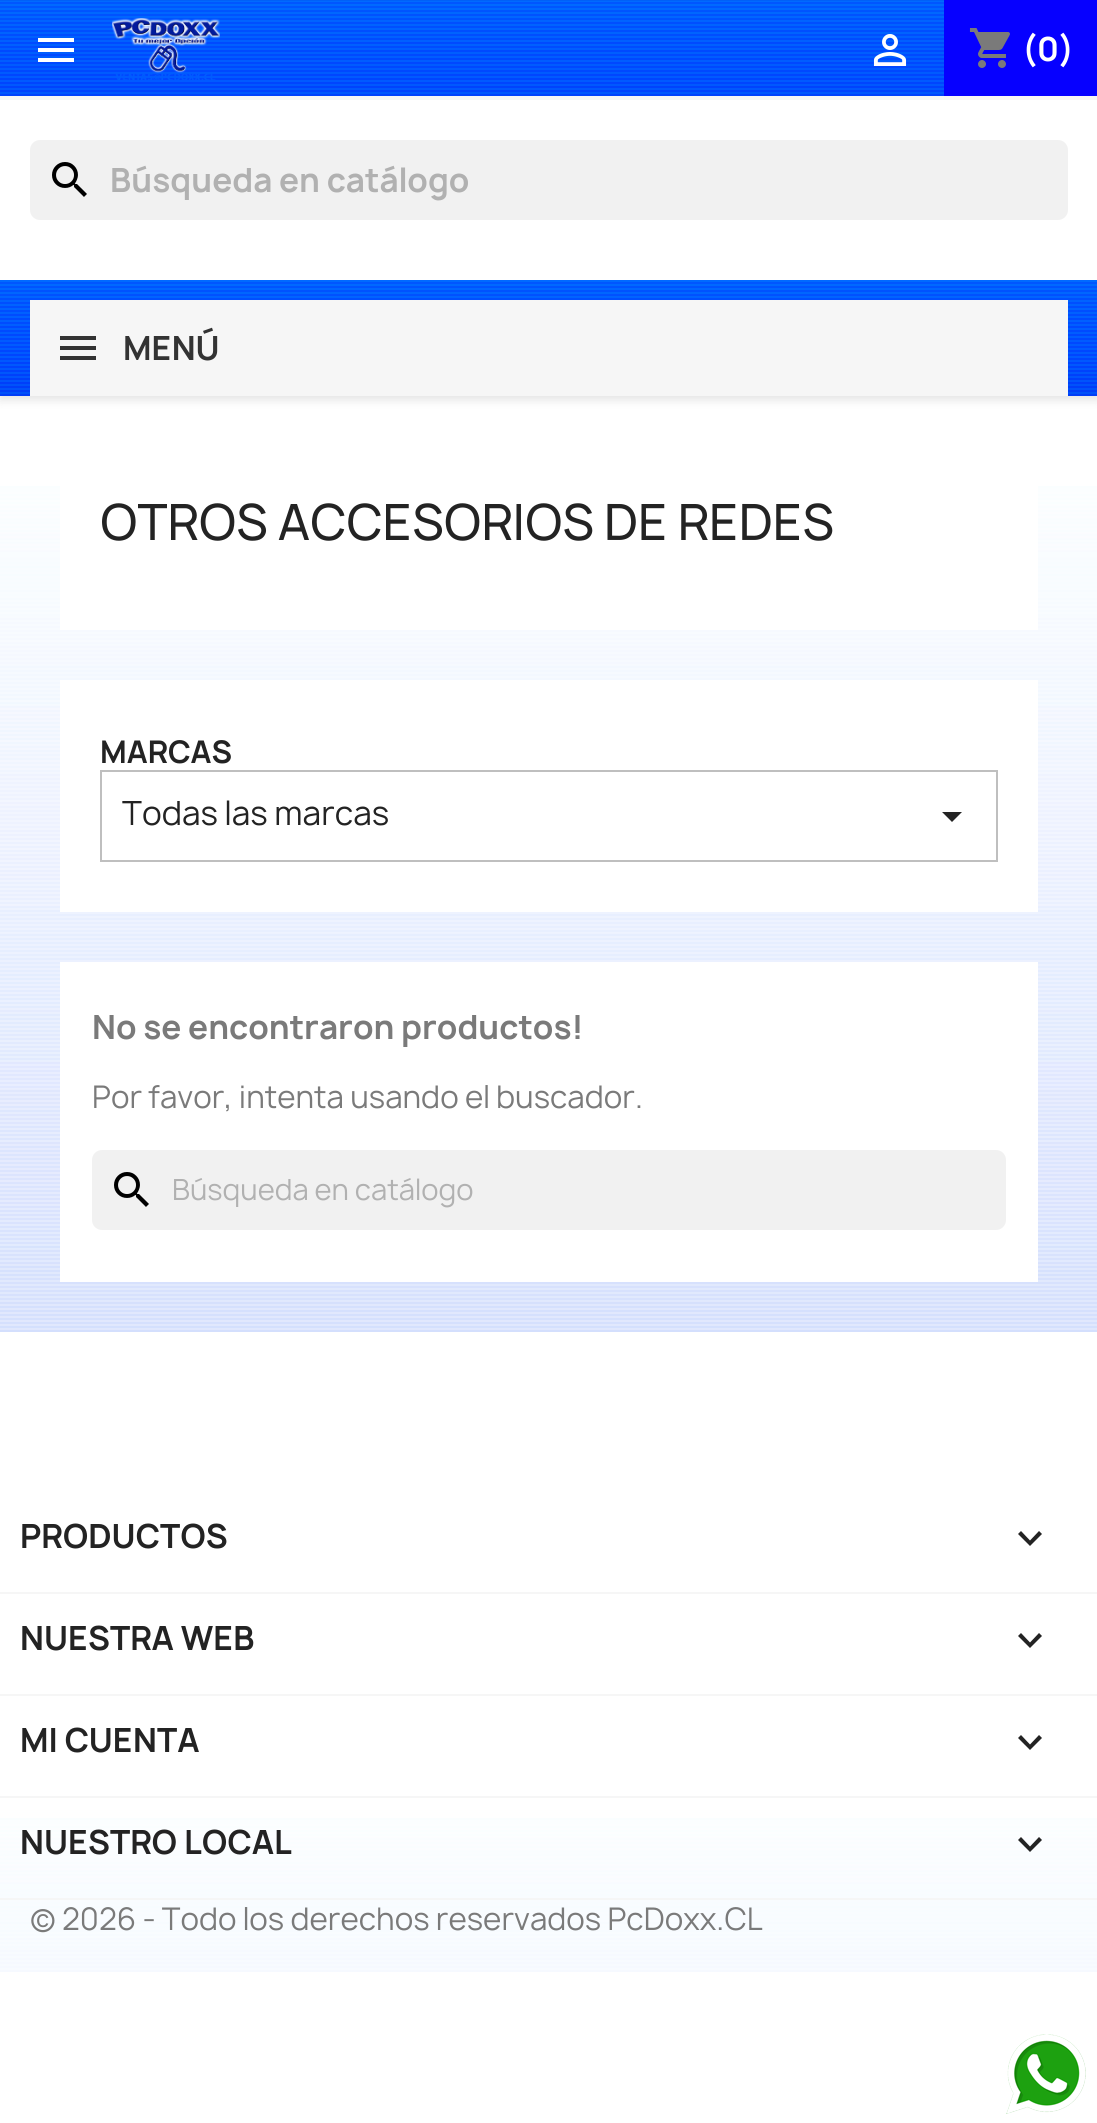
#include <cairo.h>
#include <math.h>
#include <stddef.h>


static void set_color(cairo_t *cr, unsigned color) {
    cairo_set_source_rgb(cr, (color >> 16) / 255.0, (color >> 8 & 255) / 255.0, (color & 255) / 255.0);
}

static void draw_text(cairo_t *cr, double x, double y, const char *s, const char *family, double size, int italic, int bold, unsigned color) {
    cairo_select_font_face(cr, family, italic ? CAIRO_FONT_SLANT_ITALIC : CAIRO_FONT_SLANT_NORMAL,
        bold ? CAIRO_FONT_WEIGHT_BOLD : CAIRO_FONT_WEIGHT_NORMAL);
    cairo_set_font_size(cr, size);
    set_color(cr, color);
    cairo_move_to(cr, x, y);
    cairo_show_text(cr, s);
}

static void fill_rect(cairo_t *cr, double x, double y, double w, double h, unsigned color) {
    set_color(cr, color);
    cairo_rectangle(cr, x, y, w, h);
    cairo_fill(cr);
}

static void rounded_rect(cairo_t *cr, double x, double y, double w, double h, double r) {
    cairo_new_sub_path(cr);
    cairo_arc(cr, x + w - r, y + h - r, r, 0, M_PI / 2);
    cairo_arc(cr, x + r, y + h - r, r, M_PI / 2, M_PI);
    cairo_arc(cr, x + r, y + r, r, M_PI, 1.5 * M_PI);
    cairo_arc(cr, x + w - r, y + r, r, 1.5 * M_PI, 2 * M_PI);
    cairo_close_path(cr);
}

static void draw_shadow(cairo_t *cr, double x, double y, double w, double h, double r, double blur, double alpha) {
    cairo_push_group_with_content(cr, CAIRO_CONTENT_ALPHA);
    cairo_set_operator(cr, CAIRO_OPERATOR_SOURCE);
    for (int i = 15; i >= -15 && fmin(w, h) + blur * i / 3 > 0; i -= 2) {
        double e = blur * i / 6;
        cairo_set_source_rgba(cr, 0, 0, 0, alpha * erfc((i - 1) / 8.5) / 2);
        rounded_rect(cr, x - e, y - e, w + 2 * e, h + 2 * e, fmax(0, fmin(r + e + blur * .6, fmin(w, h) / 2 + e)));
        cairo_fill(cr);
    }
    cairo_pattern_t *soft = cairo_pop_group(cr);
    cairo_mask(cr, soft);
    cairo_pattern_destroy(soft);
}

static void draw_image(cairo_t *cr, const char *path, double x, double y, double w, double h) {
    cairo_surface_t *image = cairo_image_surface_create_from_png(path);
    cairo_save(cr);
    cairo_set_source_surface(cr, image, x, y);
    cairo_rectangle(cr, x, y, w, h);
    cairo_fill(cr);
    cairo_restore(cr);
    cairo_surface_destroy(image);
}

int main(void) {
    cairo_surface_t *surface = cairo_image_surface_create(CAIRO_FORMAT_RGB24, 1097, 2123);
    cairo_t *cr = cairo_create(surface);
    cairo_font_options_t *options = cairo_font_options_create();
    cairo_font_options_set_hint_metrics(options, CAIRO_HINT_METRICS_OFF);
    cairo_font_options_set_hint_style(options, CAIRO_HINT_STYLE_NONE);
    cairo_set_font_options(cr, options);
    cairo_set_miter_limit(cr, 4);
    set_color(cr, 0xFFFFFF);
    cairo_paint(cr);
    set_color(cr, 0x000000);
    draw_shadow(cr, 0, 4, 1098, 396, 0, 5, 0.11);
    draw_image(cr, "assets/img1.png", 0, 0, 1097, 396);
    fill_rect(cr, 0, 96, 1097, 4, 0xF6F6F6);
    set_color(cr, 0xFFFFFF);
    cairo_new_path(cr);
    cairo_move_to(cr, 38, 38);
    cairo_line_to(cr, 74, 38);
    cairo_line_to(cr, 74, 42);
    cairo_line_to(cr, 38, 42);
    cairo_close_path(cr);
    cairo_move_to(cr, 38, 52);
    cairo_line_to(cr, 38, 48);
    cairo_line_to(cr, 74, 48);
    cairo_line_to(cr, 74, 52);
    cairo_close_path(cr);
    cairo_move_to(cr, 38, 62);
    cairo_line_to(cr, 38, 58);
    cairo_line_to(cr, 74, 58);
    cairo_line_to(cr, 74, 62);
    cairo_close_path(cr);
    cairo_fill(cr);
    draw_image(cr, "assets/img2.png", 112, 18, 108, 62);
    draw_image(cr, "assets/img3.png", 873, 34, 34, 32);
    fill_rect(cr, 944, 0, 153, 96, 0x0600FF);
    draw_image(cr, "assets/img4.png", 969, 28, 41, 40);
    draw_text(cr, 1022, 61, "(0)", "Manrope", 32, 0, 1, 0xFFFFFF);
    fill_rect(cr, 0, 100, 1097, 180, 0xFFFFFF);
    set_color(cr, 0xF1F1F1);
    rounded_rect(cr, 30, 140, 1038, 80, 10);
    cairo_fill(cr);
    draw_image(cr, "assets/img5.png", 52, 162, 35, 35);
    draw_text(cr, 110, 192, "Búsqueda en catálogo", "Manrope", 32, 0, 1, 0xB1B1B1);
    fill_rect(cr, 30, 300, 1038, 96, 0xF6F6F6);
    fill_rect(cr, 60, 336, 36, 4, 0x333333);
    fill_rect(cr, 60, 346, 36, 4, 0x333333);
    fill_rect(cr, 60, 356, 36, 4, 0x333333);
    draw_text(cr, 123, 360, "MENÚ", "Manrope", 32, 0, 1, 0x333333);
    draw_image(cr, "assets/img6.png", 0, 486, 1097, 846);
    fill_rect(cr, 60, 486, 978, 144, 0xFFFFFF);
    draw_text(cr, 100, 540, "OTROS ACCESORIOS DE REDES", "Manrope Medium", 48, 0, 0, 0x232323);
    fill_rect(cr, 60, 680, 978, 232, 0xFFFFFF);
    draw_text(cr, 100, 763, "MARCAS", "Manrope", 30, 0, 1, 0x232323);
    cairo_rectangle(cr, 101, 771, 896, 90);
    set_color(cr, 0xBFBFBF);
    cairo_stroke(cr);
    draw_text(cr, 122, 825, "Todas las marcas", "Manrope", 32, 0, 0, 0x232323);
    cairo_new_path(cr);
    cairo_move_to(cr, 942, 812);
    cairo_line_to(cr, 962, 812);
    cairo_line_to(cr, 952, 822);
    cairo_close_path(cr);
    cairo_fill(cr);
    fill_rect(cr, 60, 962, 978, 320, 0xFFFFFF);
    draw_text(cr, 92, 1039, "No se encontraron productos!", "Manrope", 32, 0, 1, 0x7A7A7A);
    draw_text(cr, 92, 1108, "Por favor, intenta usando el buscador.", "Manrope", 30, 0, 0, 0x7A7A7A);
    set_color(cr, 0xF1F1F1);
    rounded_rect(cr, 92, 1150, 914, 80, 10);
    cairo_fill(cr);
    draw_image(cr, "assets/img5.png", 114, 1172, 35, 35);
    draw_text(cr, 172, 1200, "Búsqueda en catálogo", "Manrope", 28, 0, 0, 0xB1B1B1);
    draw_image(cr, "assets/img7.png", 0, 1818, 1097, 154);
    fill_rect(cr, 0, 1592, 1097, 2, 0xF6F6F6);
    draw_text(cr, 20, 1548, "PRODUCTOS", "Manrope", 32, 0, 1, 0x232323);
    cairo_new_path(cr);
    cairo_move_to(cr, 1021, 1531);
    cairo_line_to(cr, 1030, 1540.5);
    cairo_line_to(cr, 1039, 1531);
    cairo_line_to(cr, 1042, 1534);
    cairo_line_to(cr, 1030, 1546);
    cairo_line_to(cr, 1018, 1534);
    cairo_close_path(cr);
    cairo_fill(cr);
    fill_rect(cr, 0, 1694, 1097, 2, 0xF6F6F6);
    draw_text(cr, 20, 1650, "NUESTRA WEB", "Manrope", 32, 0, 1, 0x232323);
    cairo_new_path(cr);
    cairo_move_to(cr, 1021, 1633);
    cairo_line_to(cr, 1030, 1642.5);
    cairo_line_to(cr, 1039, 1633);
    cairo_line_to(cr, 1042, 1636);
    cairo_line_to(cr, 1030, 1648);
    cairo_line_to(cr, 1018, 1636);
    cairo_close_path(cr);
    cairo_fill(cr);
    fill_rect(cr, 0, 1796, 1097, 2, 0xF6F6F6);
    draw_text(cr, 20, 1752, "MI CUENTA", "Manrope", 32, 0, 1, 0x232323);
    cairo_new_path(cr);
    cairo_move_to(cr, 1021, 1735);
    cairo_line_to(cr, 1030, 1744.5);
    cairo_line_to(cr, 1039, 1735);
    cairo_line_to(cr, 1042, 1738);
    cairo_line_to(cr, 1030, 1750);
    cairo_line_to(cr, 1018, 1738);
    cairo_close_path(cr);
    cairo_fill(cr);
    fill_rect(cr, 0, 1898, 1097, 2, 0xF6F6F6);
    draw_text(cr, 20, 1854, "NUESTRO LOCAL", "Manrope", 32, 0, 1, 0x232323);
    cairo_new_path(cr);
    cairo_move_to(cr, 1021, 1837);
    cairo_line_to(cr, 1030, 1846.5);
    cairo_line_to(cr, 1039, 1837);
    cairo_line_to(cr, 1042, 1840);
    cairo_line_to(cr, 1030, 1852);
    cairo_line_to(cr, 1018, 1840);
    cairo_close_path(cr);
    cairo_fill(cr);
    draw_image(cr, "assets/img8.png", 1006, 2034, 80, 80);
    draw_text(cr, 30, 1930, "© 2026 - Todo los derechos reservados PcDoxx.CL", "Manrope", 30, 0, 0, 0x7A7A7A);
    cairo_surface_write_to_png(surface, "output.png");
    cairo_font_options_destroy(options);
    cairo_destroy(cr);
    cairo_surface_destroy(surface);
    return 0;
}
